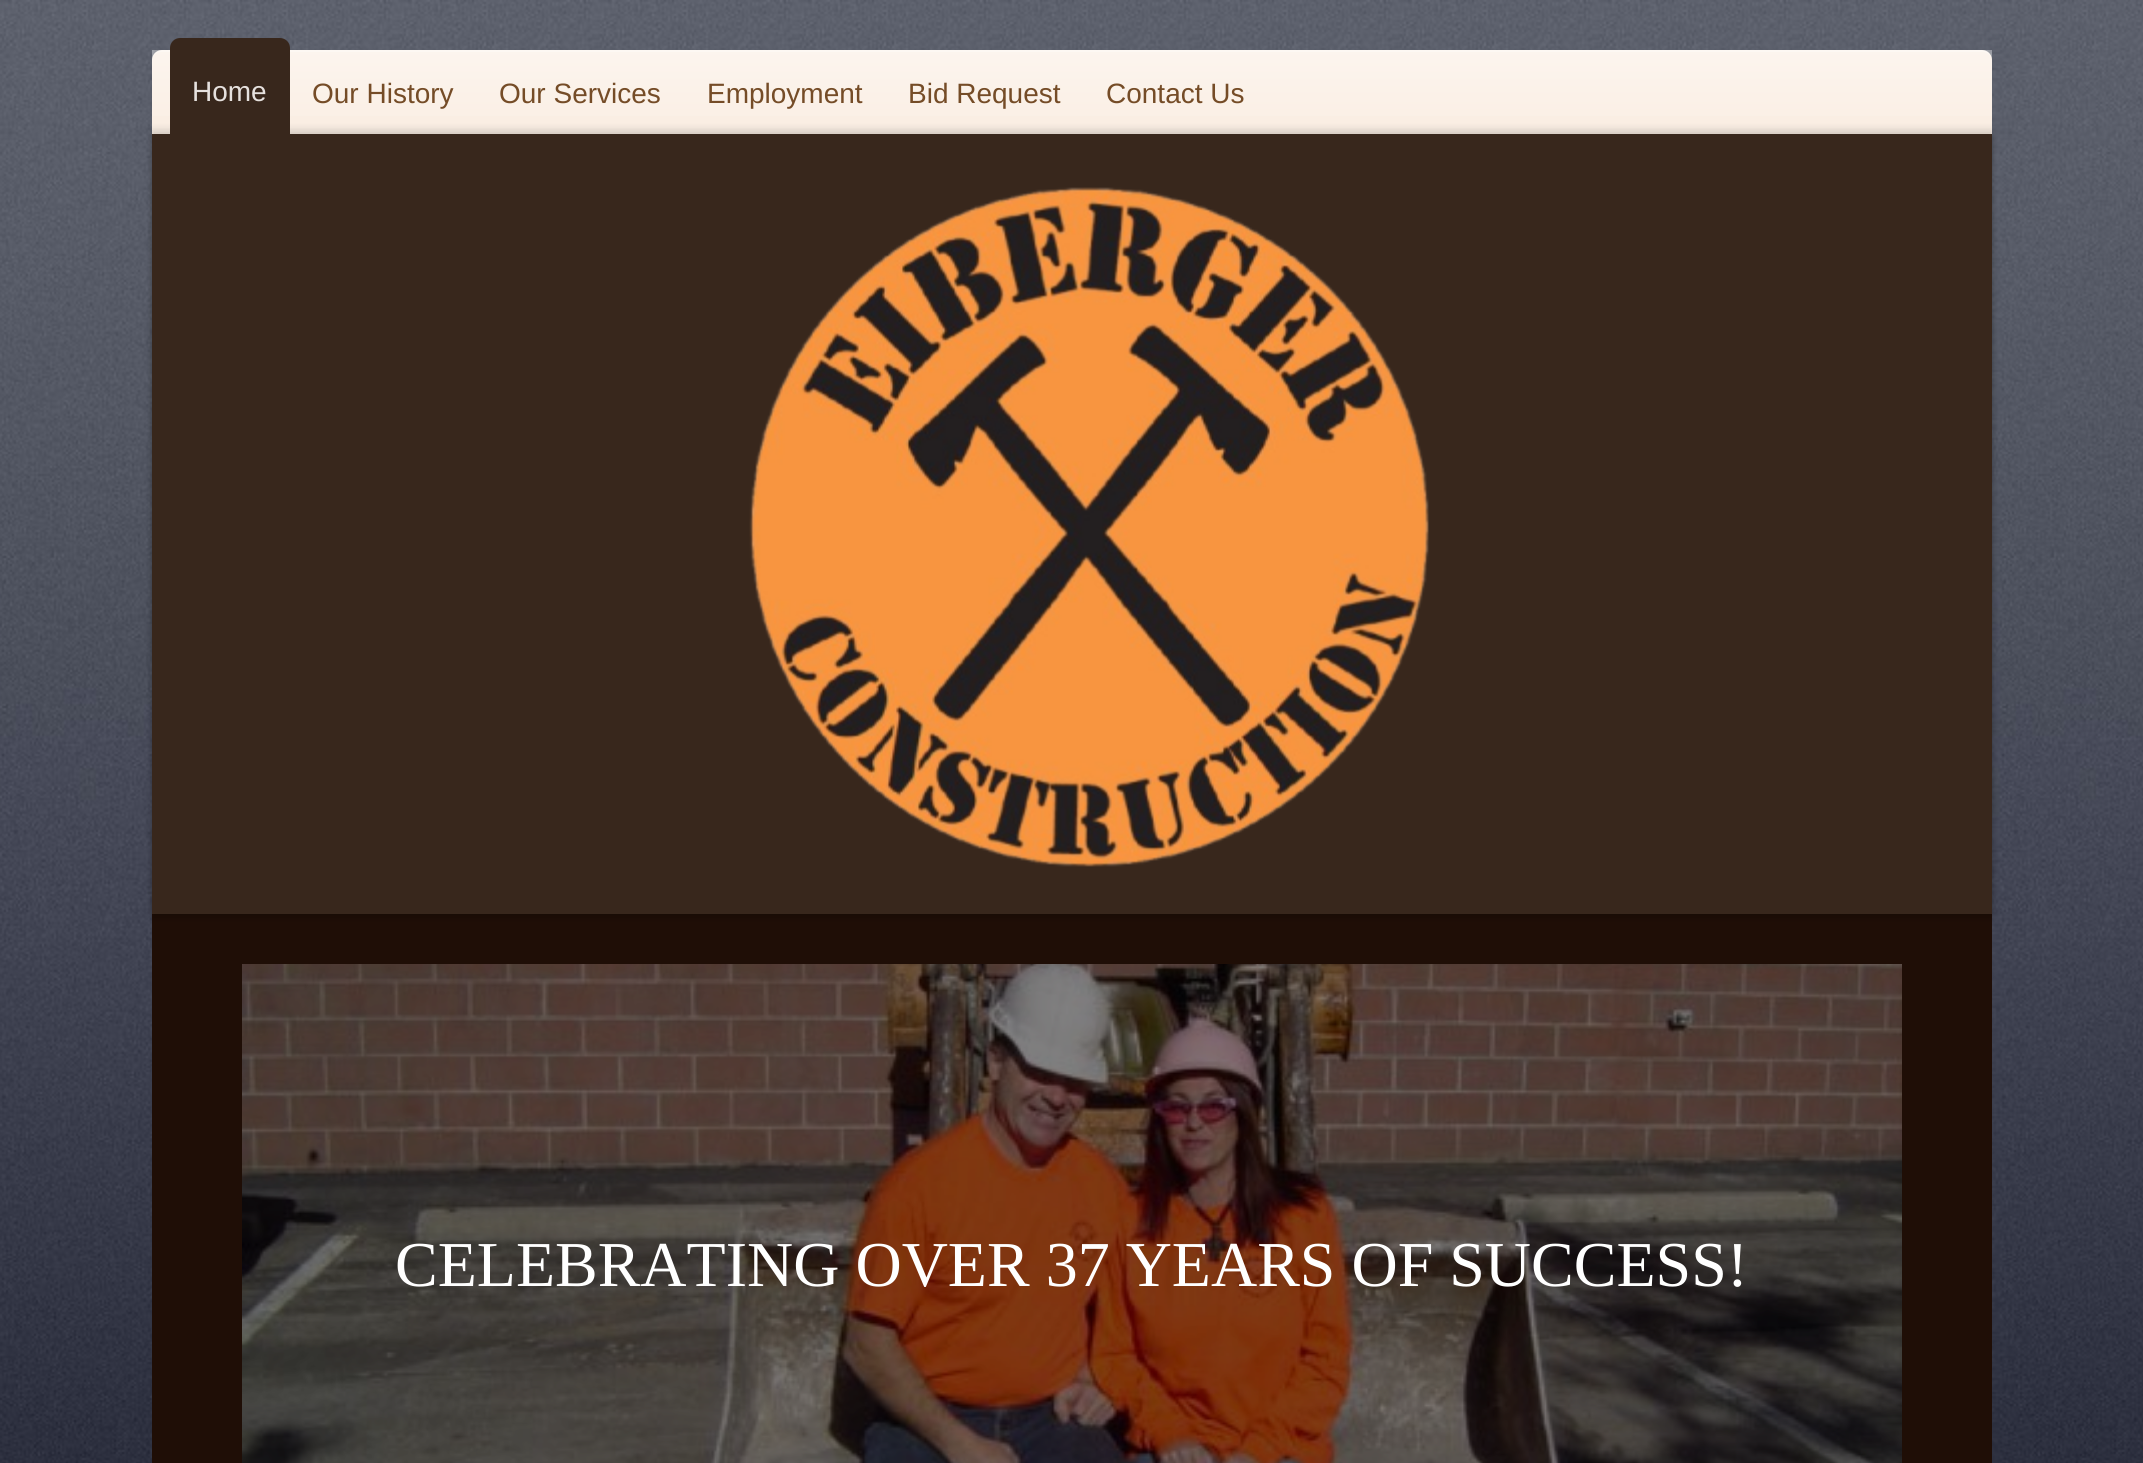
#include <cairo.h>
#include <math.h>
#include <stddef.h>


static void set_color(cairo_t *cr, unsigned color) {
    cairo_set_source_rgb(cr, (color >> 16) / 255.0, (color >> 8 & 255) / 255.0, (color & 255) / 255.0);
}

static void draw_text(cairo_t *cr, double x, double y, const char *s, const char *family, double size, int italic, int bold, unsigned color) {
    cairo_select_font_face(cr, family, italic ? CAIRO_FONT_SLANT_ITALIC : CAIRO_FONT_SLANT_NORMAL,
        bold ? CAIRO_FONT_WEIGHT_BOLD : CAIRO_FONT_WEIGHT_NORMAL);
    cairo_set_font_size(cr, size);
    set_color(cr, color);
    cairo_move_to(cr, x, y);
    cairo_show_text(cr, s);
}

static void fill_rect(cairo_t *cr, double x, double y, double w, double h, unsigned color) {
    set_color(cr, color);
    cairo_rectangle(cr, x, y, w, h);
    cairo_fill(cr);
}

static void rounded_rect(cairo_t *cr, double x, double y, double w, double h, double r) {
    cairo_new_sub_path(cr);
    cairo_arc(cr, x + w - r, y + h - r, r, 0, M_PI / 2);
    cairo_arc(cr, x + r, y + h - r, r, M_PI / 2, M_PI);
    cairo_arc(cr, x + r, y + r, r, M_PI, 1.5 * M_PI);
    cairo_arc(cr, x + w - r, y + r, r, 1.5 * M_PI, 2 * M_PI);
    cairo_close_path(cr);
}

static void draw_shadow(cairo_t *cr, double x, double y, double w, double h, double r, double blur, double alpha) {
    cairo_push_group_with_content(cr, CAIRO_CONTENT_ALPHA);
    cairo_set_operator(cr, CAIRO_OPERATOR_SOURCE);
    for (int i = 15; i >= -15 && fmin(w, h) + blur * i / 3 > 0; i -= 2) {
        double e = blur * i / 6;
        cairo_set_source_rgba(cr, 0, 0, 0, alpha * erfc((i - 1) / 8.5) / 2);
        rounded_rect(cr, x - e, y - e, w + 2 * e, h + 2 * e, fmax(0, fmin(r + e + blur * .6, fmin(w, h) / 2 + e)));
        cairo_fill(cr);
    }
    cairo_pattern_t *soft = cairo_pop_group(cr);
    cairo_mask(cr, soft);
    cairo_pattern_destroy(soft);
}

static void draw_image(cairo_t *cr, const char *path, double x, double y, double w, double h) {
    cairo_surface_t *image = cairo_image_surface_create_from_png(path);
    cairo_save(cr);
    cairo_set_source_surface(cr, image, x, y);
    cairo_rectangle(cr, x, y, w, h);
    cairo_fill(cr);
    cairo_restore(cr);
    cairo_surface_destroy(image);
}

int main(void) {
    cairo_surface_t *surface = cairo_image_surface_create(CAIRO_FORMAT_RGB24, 2143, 1463);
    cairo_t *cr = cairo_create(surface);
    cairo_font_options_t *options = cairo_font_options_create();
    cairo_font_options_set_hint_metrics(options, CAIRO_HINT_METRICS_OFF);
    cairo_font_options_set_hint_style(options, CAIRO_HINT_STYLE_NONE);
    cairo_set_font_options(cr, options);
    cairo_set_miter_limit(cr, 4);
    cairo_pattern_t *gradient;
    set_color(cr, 0xFFFFFF);
    cairo_paint(cr);
    draw_image(cr, "assets/img1.png", 0, 0, 2143, 1463);
    set_color(cr, 0xFAEEE3);
    cairo_new_path(cr);
    cairo_move_to(cr, 162, 50);
    cairo_line_to(cr, 1982, 50);
    cairo_curve_to(cr, 1987.5, 50, 1992, 54.5, 1992, 60);
    cairo_line_to(cr, 1992, 136);
    cairo_line_to(cr, 152, 136);
    cairo_line_to(cr, 152, 60);
    cairo_curve_to(cr, 152, 54.5, 156.5, 50, 162, 50);
    cairo_close_path(cr);
    cairo_fill(cr);
    cairo_set_source_rgba(cr, 1, 1, 1, 0.3);
    cairo_new_path(cr);
    cairo_move_to(cr, 162, 52);
    cairo_line_to(cr, 1982, 52);
    cairo_curve_to(cr, 1988, 52, 1992, 56, 1992, 62);
    cairo_curve_to(cr, 1992, 56, 1989, 50, 1982, 50);
    cairo_line_to(cr, 162, 50);
    cairo_curve_to(cr, 155, 50, 152, 56, 152, 62);
    cairo_curve_to(cr, 152, 56, 156, 52, 162, 52);
    cairo_close_path(cr);
    cairo_fill(cr);
    gradient = cairo_pattern_create_linear(130, 50, 130, 136);
    cairo_pattern_add_color_stop_rgba(gradient, 0, 1, 1, 1, 0.4);
    cairo_pattern_add_color_stop_rgba(gradient, 1, 1, 1, 1, 0);
    cairo_set_source(cr, gradient);
    cairo_pattern_destroy(gradient);
    cairo_rectangle(cr, 152, 50, 1840, 66);
    cairo_fill(cr);
    fill_rect(cr, 152, 914, 1840, 549, 0x1F0E06);
    set_color(cr, 0x000000);
    draw_shadow(cr, 152, 130, 1840, 780, 0, 4, 0.15);
    draw_shadow(cr, 152, 138, 1840, 780, 0, 3, 0.2);
    fill_rect(cr, 152, 134, 1840, 780, 0x38271C);
    cairo_new_path(cr);
    cairo_move_to(cr, 180, 38);
    cairo_line_to(cr, 280, 38);
    cairo_curve_to(cr, 285.5, 38, 290, 42.5, 290, 48);
    cairo_line_to(cr, 290, 136);
    cairo_line_to(cr, 170, 136);
    cairo_line_to(cr, 170, 48);
    cairo_curve_to(cr, 170, 42.5, 174.5, 38, 180, 38);
    cairo_close_path(cr);
    cairo_fill(cr);
    draw_text(cr, 192, 101, "Home", "Liberation Sans", 28, 0, 0, 0xE6E1DE);
    draw_text(cr, 312, 103, "Our History", "Liberation Sans", 28, 0, 0, 0x754C27);
    draw_text(cr, 499, 103, "Our Services", "Liberation Sans", 28, 0, 0, 0x754C27);
    draw_text(cr, 707, 103, "Employment", "Liberation Sans", 28, 0, 0, 0x754C27);
    draw_text(cr, 908, 103, "Bid Request", "Liberation Sans", 28, 0, 0, 0x754C27);
    draw_text(cr, 1106, 103, "Contact Us", "Liberation Sans", 28, 0, 0, 0x754C27);
    draw_image(cr, "assets/img2.png", 749, 187, 680, 680);
    draw_image(cr, "assets/img3.png", 242, 964, 1660, 499);
    draw_text(cr, 395, 1286, "CELEBRATING OVER 37 YEARS OF SUCCESS!", "Liberation Serif", 64, 0, 0, 0xFFFFFF);
    cairo_surface_write_to_png(surface, "output.png");
    cairo_font_options_destroy(options);
    cairo_destroy(cr);
    cairo_surface_destroy(surface);
    return 0;
}
